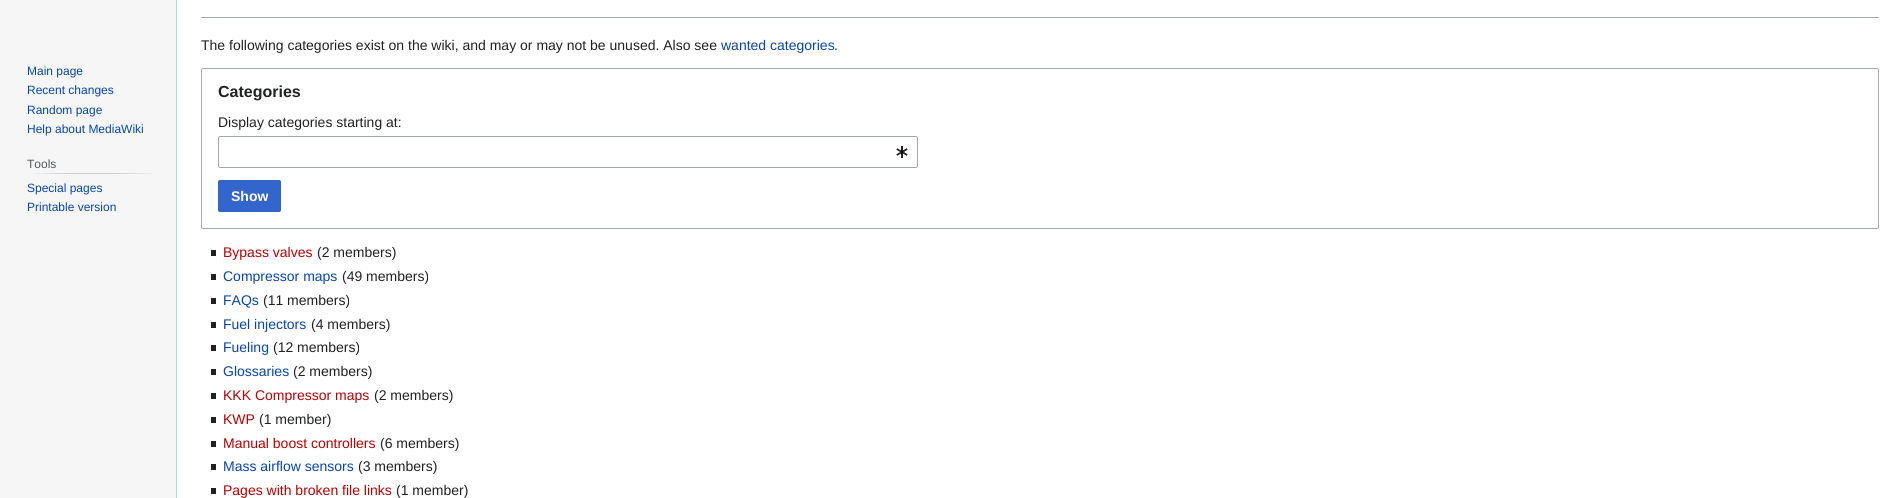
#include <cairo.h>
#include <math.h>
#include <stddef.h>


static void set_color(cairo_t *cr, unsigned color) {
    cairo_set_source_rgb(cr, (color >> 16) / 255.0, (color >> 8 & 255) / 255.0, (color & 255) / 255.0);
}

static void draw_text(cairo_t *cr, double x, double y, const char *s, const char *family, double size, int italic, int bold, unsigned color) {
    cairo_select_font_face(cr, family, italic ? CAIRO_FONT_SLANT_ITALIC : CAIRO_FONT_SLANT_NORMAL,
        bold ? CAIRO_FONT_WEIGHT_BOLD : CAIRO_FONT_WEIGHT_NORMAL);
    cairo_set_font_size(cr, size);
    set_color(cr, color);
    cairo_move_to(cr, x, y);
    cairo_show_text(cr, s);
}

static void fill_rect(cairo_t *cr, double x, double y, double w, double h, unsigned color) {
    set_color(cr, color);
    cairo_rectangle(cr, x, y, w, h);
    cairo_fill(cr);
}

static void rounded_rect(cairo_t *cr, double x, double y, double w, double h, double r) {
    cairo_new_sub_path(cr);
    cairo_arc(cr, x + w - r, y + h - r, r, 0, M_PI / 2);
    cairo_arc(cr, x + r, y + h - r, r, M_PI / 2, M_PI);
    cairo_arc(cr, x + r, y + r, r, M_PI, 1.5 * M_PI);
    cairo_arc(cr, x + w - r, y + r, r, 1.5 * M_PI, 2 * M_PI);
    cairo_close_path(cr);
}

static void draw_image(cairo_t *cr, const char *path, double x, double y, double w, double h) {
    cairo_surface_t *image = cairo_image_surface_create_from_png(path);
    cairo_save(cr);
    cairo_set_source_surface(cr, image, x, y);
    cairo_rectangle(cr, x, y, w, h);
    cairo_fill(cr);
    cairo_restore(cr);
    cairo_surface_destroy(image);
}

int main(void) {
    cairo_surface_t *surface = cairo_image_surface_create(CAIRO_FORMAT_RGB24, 1903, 498);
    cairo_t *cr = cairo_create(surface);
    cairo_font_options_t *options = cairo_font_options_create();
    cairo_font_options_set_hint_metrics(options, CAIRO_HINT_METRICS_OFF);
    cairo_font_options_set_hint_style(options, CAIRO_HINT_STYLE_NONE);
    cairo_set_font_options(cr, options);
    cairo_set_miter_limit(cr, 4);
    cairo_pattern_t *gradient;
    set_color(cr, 0xF6F6F6);
    cairo_paint(cr);
    draw_text(cr, 27, 75, "Main page", "Liberation Sans", 12, 0, 0, 0x0645AD);
    draw_text(cr, 27, 94, "Recent changes", "Liberation Sans", 12, 0, 0, 0x0645AD);
    draw_text(cr, 27, 114, "Random page", "Liberation Sans", 12, 0, 0, 0x0645AD);
    draw_text(cr, 27, 133, "Help about MediaWiki", "Liberation Sans", 12, 0, 0, 0x0645AD);
    gradient = cairo_pattern_create_linear(27, 174, 158, 174);
    cairo_pattern_add_color_stop_rgba(gradient, 0, 0.965, 0.965, 0.965, 1);
    cairo_pattern_add_color_stop_rgba(gradient, 0.33, 0.784, 0.8, 0.82, 1);
    cairo_pattern_add_color_stop_rgba(gradient, 0.66, 0.784, 0.8, 0.82, 1);
    cairo_pattern_add_color_stop_rgba(gradient, 1, 0.965, 0.965, 0.965, 1);
    cairo_set_source(cr, gradient);
    cairo_pattern_destroy(gradient);
    cairo_rectangle(cr, 27, 173, 131, 1);
    cairo_fill(cr);
    draw_text(cr, 27, 168, "Tools", "Liberation Sans", 12, 0, 0, 0x54595D);
    draw_text(cr, 27, 192, "Special pages", "Liberation Sans", 12, 0, 0, 0x0645AD);
    draw_text(cr, 27, 211, "Printable version", "Liberation Sans", 12, 0, 0, 0x0645AD);
    fill_rect(cr, 177, 0, 1726, 498, 0xFFFFFF);
    fill_rect(cr, 176, 0, 1, 498, 0xA7D7F9);
    fill_rect(cr, 201, 17, 1678, 1, 0xA2A9B1);
    draw_text(cr, 201, 50, "The following categories exist on the wiki, and may or may not be unused. Also see", "Liberation Sans", 14, 0, 0, 0x202122);
    draw_text(cr, 721, 50, "wanted categories", "Liberation Sans", 14, 0, 0, 0x0645AD);
    draw_text(cr, 834, 50, ".", "Liberation Sans", 14, 0, 0, 0x202122);
    rounded_rect(cr, 201.5, 68.5, 1677, 160, 1.5);
    set_color(cr, 0xA2A9B1);
    cairo_set_line_width(cr, 1);
    cairo_stroke(cr);
    draw_text(cr, 218, 97, "Categories", "Liberation Sans", 16, 0, 1, 0x202122);
    draw_text(cr, 218, 127, "Display categories starting at:", "Liberation Sans", 14, 0, 0, 0x202122);
    rounded_rect(cr, 218.5, 136.5, 699, 31, 1.5);
    set_color(cr, 0xA2A9B1);
    cairo_stroke(cr);
    draw_image(cr, "assets/img1.png", 896, 146, 12, 12);
    set_color(cr, 0x3366CC);
    rounded_rect(cr, 218.5, 180.5, 62, 31, 1.5);
    cairo_fill_preserve(cr);
    cairo_stroke(cr);
    draw_text(cr, 231, 201, "Show", "Liberation Sans", 14, 0, 1, 0xFFFFFF);
    fill_rect(cr, 211, 250, 5, 6, 0x202122);
    draw_text(cr, 223, 257, "Bypass valves", "Liberation Sans", 14, 0, 0, 0xBA0000);
    draw_text(cr, 317, 257, "(2 members)", "Liberation Sans", 14, 0, 0, 0x202122);
    fill_rect(cr, 211, 274, 5, 6, 0x202122);
    draw_text(cr, 223, 281, "Compressor maps", "Liberation Sans", 14, 0, 0, 0x0645AD);
    draw_text(cr, 342, 281, "(49 members)", "Liberation Sans", 14, 0, 0, 0x202122);
    fill_rect(cr, 211, 298, 5, 6, 0x202122);
    draw_text(cr, 223, 305, "FAQs", "Liberation Sans", 14, 0, 0, 0x0645AD);
    draw_text(cr, 263, 305, "(11 members)", "Liberation Sans", 14, 0, 0, 0x202122);
    fill_rect(cr, 211, 322, 5, 6, 0x202122);
    draw_text(cr, 223, 329, "Fuel injectors", "Liberation Sans", 14, 0, 0, 0x0645AD);
    draw_text(cr, 311, 329, "(4 members)", "Liberation Sans", 14, 0, 0, 0x202122);
    fill_rect(cr, 211, 345, 5, 6, 0x202122);
    draw_text(cr, 223, 352, "Fueling", "Liberation Sans", 14, 0, 0, 0x0645AD);
    draw_text(cr, 273, 352, "(12 members)", "Liberation Sans", 14, 0, 0, 0x202122);
    fill_rect(cr, 211, 369, 5, 6, 0x202122);
    draw_text(cr, 223, 376, "Glossaries", "Liberation Sans", 14, 0, 0, 0x0645AD);
    draw_text(cr, 293, 376, "(2 members)", "Liberation Sans", 14, 0, 0, 0x202122);
    fill_rect(cr, 211, 393, 5, 6, 0x202122);
    draw_text(cr, 223, 400, "KKK Compressor maps", "Liberation Sans", 14, 0, 0, 0xBA0000);
    draw_text(cr, 374, 400, "(2 members)", "Liberation Sans", 14, 0, 0, 0x202122);
    fill_rect(cr, 211, 417, 5, 6, 0x202122);
    draw_text(cr, 223, 424, "KWP", "Liberation Sans", 14, 0, 0, 0xBA0000);
    draw_text(cr, 259, 424, "(1 member)", "Liberation Sans", 14, 0, 0, 0x202122);
    fill_rect(cr, 211, 441, 5, 6, 0x202122);
    draw_text(cr, 223, 448, "Manual boost controllers", "Liberation Sans", 14, 0, 0, 0xBA0000);
    draw_text(cr, 380, 448, "(6 members)", "Liberation Sans", 14, 0, 0, 0x202122);
    fill_rect(cr, 211, 464, 5, 6, 0x202122);
    draw_text(cr, 223, 471, "Mass airflow sensors", "Liberation Sans", 14, 0, 0, 0x0645AD);
    draw_text(cr, 358, 471, "(3 members)", "Liberation Sans", 14, 0, 0, 0x202122);
    fill_rect(cr, 211, 488, 5, 6, 0x202122);
    draw_text(cr, 223, 495, "Pages with broken file links", "Liberation Sans", 14, 0, 0, 0xBA0000);
    draw_text(cr, 396, 495, "(1 member)", "Liberation Sans", 14, 0, 0, 0x202122);
    cairo_surface_write_to_png(surface, "output.png");
    cairo_font_options_destroy(options);
    cairo_destroy(cr);
    cairo_surface_destroy(surface);
    return 0;
}
